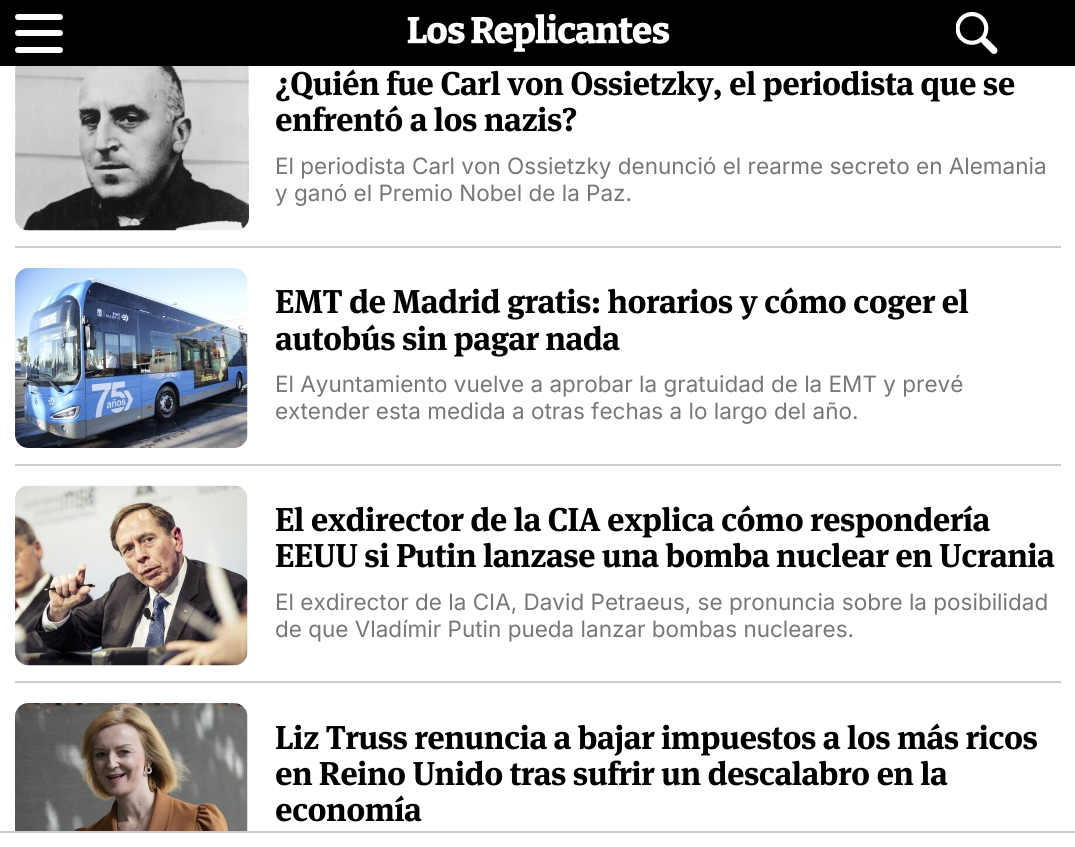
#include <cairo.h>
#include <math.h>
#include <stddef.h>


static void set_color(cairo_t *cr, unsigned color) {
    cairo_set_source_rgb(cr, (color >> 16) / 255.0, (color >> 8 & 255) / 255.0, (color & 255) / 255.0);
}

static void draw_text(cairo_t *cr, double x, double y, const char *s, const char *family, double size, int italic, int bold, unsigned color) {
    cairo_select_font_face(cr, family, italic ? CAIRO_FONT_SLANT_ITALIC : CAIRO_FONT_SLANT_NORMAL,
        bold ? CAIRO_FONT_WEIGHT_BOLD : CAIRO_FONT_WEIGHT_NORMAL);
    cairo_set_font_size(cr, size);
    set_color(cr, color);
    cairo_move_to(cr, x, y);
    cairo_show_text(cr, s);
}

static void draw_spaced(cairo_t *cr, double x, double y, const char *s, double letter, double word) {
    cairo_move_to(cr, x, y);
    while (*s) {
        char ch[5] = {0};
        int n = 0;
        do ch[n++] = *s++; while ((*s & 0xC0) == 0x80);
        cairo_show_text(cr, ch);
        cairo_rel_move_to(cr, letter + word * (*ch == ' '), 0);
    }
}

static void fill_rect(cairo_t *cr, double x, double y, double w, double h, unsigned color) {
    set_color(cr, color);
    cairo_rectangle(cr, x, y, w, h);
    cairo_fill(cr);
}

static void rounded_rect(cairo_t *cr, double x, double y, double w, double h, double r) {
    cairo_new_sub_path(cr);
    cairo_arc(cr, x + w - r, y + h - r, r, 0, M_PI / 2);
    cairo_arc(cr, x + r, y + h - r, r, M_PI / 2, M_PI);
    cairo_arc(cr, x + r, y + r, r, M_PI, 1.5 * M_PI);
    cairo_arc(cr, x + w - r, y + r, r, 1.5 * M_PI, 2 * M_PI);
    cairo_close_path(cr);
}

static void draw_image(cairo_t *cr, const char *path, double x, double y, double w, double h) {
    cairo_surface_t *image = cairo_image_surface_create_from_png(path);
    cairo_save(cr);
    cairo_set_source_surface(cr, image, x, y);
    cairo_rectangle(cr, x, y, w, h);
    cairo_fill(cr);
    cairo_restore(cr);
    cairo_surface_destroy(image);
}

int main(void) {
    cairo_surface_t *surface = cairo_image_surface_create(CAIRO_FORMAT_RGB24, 1075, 847);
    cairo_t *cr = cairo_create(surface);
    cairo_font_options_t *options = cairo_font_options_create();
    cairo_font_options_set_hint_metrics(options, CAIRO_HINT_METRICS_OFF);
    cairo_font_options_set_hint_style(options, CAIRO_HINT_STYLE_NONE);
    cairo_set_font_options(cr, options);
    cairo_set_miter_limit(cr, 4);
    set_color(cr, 0xFFFFFF);
    cairo_paint(cr);
    fill_rect(cr, 0, 0, 1075, 66, 0x000000);
    set_color(cr, 0xFFFFFF);
    rounded_rect(cr, 15, 14, 48, 6, 3);
    cairo_fill(cr);
    rounded_rect(cr, 15, 30, 48, 6, 3);
    cairo_fill(cr);
    rounded_rect(cr, 15, 47, 48, 6, 3);
    cairo_fill(cr);
    draw_image(cr, "assets/img1.png", 407, 14, 263, 38);
    draw_image(cr, "assets/img2.png", 956, 12, 42, 42);
    fill_rect(cr, 15, 246, 1046, 2, 0xCCCCCC);
    draw_image(cr, "assets/img3.png", 15, 66, 234, 165);
    cairo_select_font_face(cr, "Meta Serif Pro", CAIRO_FONT_SLANT_NORMAL, CAIRO_FONT_WEIGHT_BOLD);
    cairo_set_font_size(cr, 33);
    set_color(cr, 0x000000);
    draw_spaced(cr, 275, 95, "¿Quién fue Carl von Ossietzky, el periodista que se", -0.55, 0);
    draw_spaced(cr, 275, 131, "enfrentó a los nazis?", -0.55, 0);
    draw_text(cr, 275, 174, "El periodista Carl von Ossietzky denunció el rearme secreto en Alemania", "Inter", 22.5, 0, 0, 0x777777);
    draw_text(cr, 275, 201, "y ganó el Premio Nobel de la Paz.", "Inter", 22.5, 0, 0, 0x777777);
    fill_rect(cr, 15, 464, 1046, 2, 0xCCCCCC);
    draw_image(cr, "assets/img4.png", 15, 268, 233, 180);
    cairo_select_font_face(cr, "Meta Serif Pro", CAIRO_FONT_SLANT_NORMAL, CAIRO_FONT_WEIGHT_BOLD);
    cairo_set_font_size(cr, 33);
    set_color(cr, 0x000000);
    draw_spaced(cr, 275, 313, "EMT de Madrid gratis: horarios y cómo coger el", -0.55, 0);
    draw_spaced(cr, 275, 350, "autobús sin pagar nada", -0.55, 0);
    draw_text(cr, 275, 392, "El Ayuntamiento vuelve a aprobar la gratuidad de la EMT y prevé", "Inter", 22.5, 0, 0, 0x777777);
    draw_text(cr, 275, 419, "extender esta medida a otras fechas a lo largo del año.", "Inter", 22.5, 0, 0, 0x777777);
    fill_rect(cr, 15, 681, 1046, 2, 0xCCCCCC);
    draw_image(cr, "assets/img5.png", 15, 485, 233, 181);
    cairo_select_font_face(cr, "Meta Serif Pro", CAIRO_FONT_SLANT_NORMAL, CAIRO_FONT_WEIGHT_BOLD);
    cairo_set_font_size(cr, 33);
    set_color(cr, 0x000000);
    draw_spaced(cr, 275, 531, "El exdirector de la CIA explica cómo respondería", -0.55, 0);
    draw_spaced(cr, 275, 567, "EEUU si Putin lanzase una bomba nuclear en Ucrania", -0.55, 0);
    draw_text(cr, 275, 610, "El exdirector de la CIA, David Petraeus, se pronuncia sobre la posibilidad", "Inter", 22.5, 0, 0, 0x777777);
    draw_text(cr, 275, 637, "de que Vladímir Putin pueda lanzar bombas nucleares.", "Inter", 22.5, 0, 0, 0x777777);
    draw_image(cr, "assets/img6.png", 15, 703, 233, 128);
    cairo_select_font_face(cr, "Meta Serif Pro", CAIRO_FONT_SLANT_NORMAL, CAIRO_FONT_WEIGHT_BOLD);
    cairo_set_font_size(cr, 33);
    set_color(cr, 0x000000);
    draw_spaced(cr, 275, 749, "Liz Truss renuncia a bajar impuestos a los más ricos", -0.55, 0);
    draw_spaced(cr, 275, 785, "en Reino Unido tras sufrir un descalabro en la", -0.55, 0);
    draw_spaced(cr, 275, 821, "economía", -0.55, 0);
    fill_rect(cr, 0, 831, 1075, 2, 0xCCCCCC);
    cairo_surface_write_to_png(surface, "output.png");
    cairo_font_options_destroy(options);
    cairo_destroy(cr);
    cairo_surface_destroy(surface);
    return 0;
}
